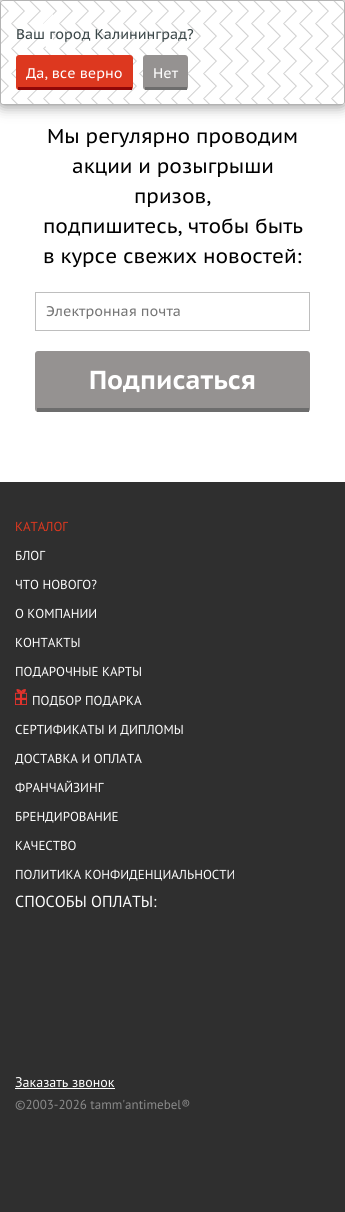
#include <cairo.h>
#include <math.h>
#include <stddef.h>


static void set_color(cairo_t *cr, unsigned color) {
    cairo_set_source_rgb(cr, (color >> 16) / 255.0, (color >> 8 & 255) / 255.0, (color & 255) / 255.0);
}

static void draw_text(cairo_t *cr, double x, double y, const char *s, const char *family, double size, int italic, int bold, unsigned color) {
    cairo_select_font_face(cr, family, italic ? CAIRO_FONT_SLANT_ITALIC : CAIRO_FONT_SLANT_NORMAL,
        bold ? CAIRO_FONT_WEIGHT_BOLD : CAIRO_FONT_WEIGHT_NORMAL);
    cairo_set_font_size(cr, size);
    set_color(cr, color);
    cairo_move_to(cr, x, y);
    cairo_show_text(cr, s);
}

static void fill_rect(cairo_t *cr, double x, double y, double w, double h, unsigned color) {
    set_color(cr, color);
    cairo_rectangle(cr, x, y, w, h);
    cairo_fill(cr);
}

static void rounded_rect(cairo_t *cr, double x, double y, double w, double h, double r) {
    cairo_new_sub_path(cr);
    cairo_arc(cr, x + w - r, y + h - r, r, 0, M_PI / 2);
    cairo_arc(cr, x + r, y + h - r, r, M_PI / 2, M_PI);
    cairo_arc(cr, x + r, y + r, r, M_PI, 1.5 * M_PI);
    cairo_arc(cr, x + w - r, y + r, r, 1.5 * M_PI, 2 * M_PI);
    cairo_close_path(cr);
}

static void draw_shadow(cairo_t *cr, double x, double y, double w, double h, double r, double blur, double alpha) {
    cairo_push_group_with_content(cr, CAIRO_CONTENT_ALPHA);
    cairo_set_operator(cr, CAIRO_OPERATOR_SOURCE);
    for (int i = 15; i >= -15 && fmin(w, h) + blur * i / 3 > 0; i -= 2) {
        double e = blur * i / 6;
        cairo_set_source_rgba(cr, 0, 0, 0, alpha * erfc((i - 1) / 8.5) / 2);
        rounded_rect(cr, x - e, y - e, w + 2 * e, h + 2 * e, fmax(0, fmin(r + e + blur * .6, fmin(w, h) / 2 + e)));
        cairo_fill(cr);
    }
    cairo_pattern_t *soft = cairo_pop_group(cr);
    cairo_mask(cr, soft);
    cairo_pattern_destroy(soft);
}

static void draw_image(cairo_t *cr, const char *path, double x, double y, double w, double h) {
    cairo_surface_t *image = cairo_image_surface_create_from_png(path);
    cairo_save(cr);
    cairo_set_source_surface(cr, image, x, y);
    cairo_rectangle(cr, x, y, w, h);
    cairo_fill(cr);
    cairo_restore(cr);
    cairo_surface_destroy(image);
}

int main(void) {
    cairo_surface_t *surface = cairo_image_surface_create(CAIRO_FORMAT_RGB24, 345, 1212);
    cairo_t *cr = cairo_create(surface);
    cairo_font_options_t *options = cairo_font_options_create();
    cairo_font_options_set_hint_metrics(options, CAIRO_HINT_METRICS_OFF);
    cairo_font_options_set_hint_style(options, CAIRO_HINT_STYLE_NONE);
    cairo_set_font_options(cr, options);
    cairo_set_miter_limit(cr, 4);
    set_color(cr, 0xFFFFFF);
    cairo_paint(cr);
    set_color(cr, 0x000000);
    draw_shadow(cr, 0, 0, 345, 105, 3, 7.5, 0.5);
    set_color(cr, 0xFFFFFF);
    rounded_rect(cr, 0, 0, 345, 105, 3);
    cairo_fill(cr);
    draw_image(cr, "assets/img1.png", 0, 0, 345, 105);
    rounded_rect(cr, 0.5, 0.5, 344, 104, 2.5);
    set_color(cr, 0xB3B3B3);
    cairo_set_line_width(cr, 1);
    cairo_stroke(cr);
    set_color(cr, 0xFFFFFF);
    cairo_new_path(cr);
    cairo_move_to(cr, 53, 14);
    cairo_line_to(cr, 53, 54);
    cairo_line_to(cr, 33, 34);
    cairo_close_path(cr);
    cairo_fill(cr);
    draw_text(cr, 16, 39, "Ваш город Калининград?", "PT Sans Caption", 14, 0, 0, 0x3A4648);
    set_color(cr, 0xDD381F);
    rounded_rect(cr, 16, 55, 117, 35, 3);
    cairo_fill(cr);
    fill_rect(cr, 18, 87, 114, 3, 0x900808);
    draw_text(cr, 26, 78, "Да, все верно", "PT Sans Caption", 14, 0, 0, 0xFFFFFF);
    set_color(cr, 0x959291);
    rounded_rect(cr, 143, 55, 45, 35, 3);
    cairo_fill(cr);
    fill_rect(cr, 145, 87, 42, 3, 0x6D6D6D);
    draw_text(cr, 153, 78, "Нет", "PT Sans Caption", 14, 0, 0, 0xFFFFFF);
    draw_text(cr, 47, 143, "Мы регулярно проводим", "PT Sans Caption", 20, 0, 0, 0x000000);
    draw_text(cr, 72, 173, "акции и розыгрыши", "PT Sans Caption", 20, 0, 0, 0x000000);
    draw_text(cr, 134, 203, "призов,", "PT Sans Caption", 20, 0, 0, 0x000000);
    draw_text(cr, 43, 233, "подпишитесь, чтобы быть", "PT Sans Caption", 20, 0, 0, 0x000000);
    draw_text(cr, 43, 263, "в курсе свежих новостей:", "PT Sans Caption", 20, 0, 0, 0x000000);
    cairo_rectangle(cr, 35.5, 292.5, 274, 38);
    set_color(cr, 0xBEBEBE);
    cairo_stroke(cr);
    draw_text(cr, 46, 316, "Электронная почта", "PT Sans Caption", 14, 0, 0, 0x757575);
    set_color(cr, 0x959291);
    rounded_rect(cr, 35, 351, 275, 61, 3);
    cairo_fill(cr);
    fill_rect(cr, 37, 408, 272, 4, 0x6D6D6D);
    draw_text(cr, 89, 389, "Подписаться", "PT Sans Caption", 26, 0, 1, 0xFFFFFF);
    fill_rect(cr, 0, 482, 345, 730, 0x2F2F2F);
    draw_text(cr, 15, 531, "КАТАЛОГ", "PT Sans", 13, 0, 0, 0xDD381F);
    draw_text(cr, 15, 560, "БЛОГ", "PT Sans", 13, 0, 0, 0xFFFFFF);
    draw_text(cr, 15, 589, "ЧТО НОВОГО?", "PT Sans", 13, 0, 0, 0xFFFFFF);
    draw_text(cr, 15, 618, "О КОМПАНИИ", "PT Sans", 13, 0, 0, 0xFFFFFF);
    draw_text(cr, 15, 647, "КОНТАКТЫ", "PT Sans", 13, 0, 0, 0xFFFFFF);
    draw_text(cr, 15, 676, "ПОДАРОЧНЫЕ КАРТЫ", "PT Sans", 13, 0, 0, 0xFFFFFF);
    draw_image(cr, "assets/img2.png", 15, 689, 12, 16);
    draw_text(cr, 32, 705, "ПОДБОР ПОДАРКА", "PT Sans", 13, 0, 0, 0xFFFFFF);
    draw_text(cr, 15, 734, "СЕРТИФИКАТЫ И ДИПЛОМЫ", "PT Sans", 13, 0, 0, 0xFFFFFF);
    draw_text(cr, 15, 763, "ДОСТАВКА И ОПЛАТА", "PT Sans", 13, 0, 0, 0xFFFFFF);
    draw_text(cr, 15, 792, "ФРАНЧАЙЗИНГ", "PT Sans", 13, 0, 0, 0xFFFFFF);
    draw_text(cr, 15, 821, "БРЕНДИРОВАНИЕ", "PT Sans", 13, 0, 0, 0xFFFFFF);
    draw_text(cr, 15, 850, "КАЧЕСТВО", "PT Sans", 13, 0, 0, 0xFFFFFF);
    draw_text(cr, 15, 879, "ПОЛИТИКА КОНФИДЕНЦИАЛЬНОСТИ", "PT Sans", 13, 0, 0, 0xFFFFFF);
    draw_text(cr, 15, 907, "СПОСОБЫ ОПЛАТЫ:", "PT Sans", 16, 0, 0, 0xFFFFFF);
    draw_text(cr, 15, 1087, "Заказать звонок", "PT Sans", 14, 0, 0, 0xFFFFFF);
    fill_rect(cr, 15, 1088, 100, 1, 0xFFFFFF);
    draw_text(cr, 15, 1109, "©2003-2026 tamm'antimebel®", "PT Sans", 13, 0, 0, 0x8A8A8A);
    cairo_surface_write_to_png(surface, "output.png");
    cairo_font_options_destroy(options);
    cairo_destroy(cr);
    cairo_surface_destroy(surface);
    return 0;
}
